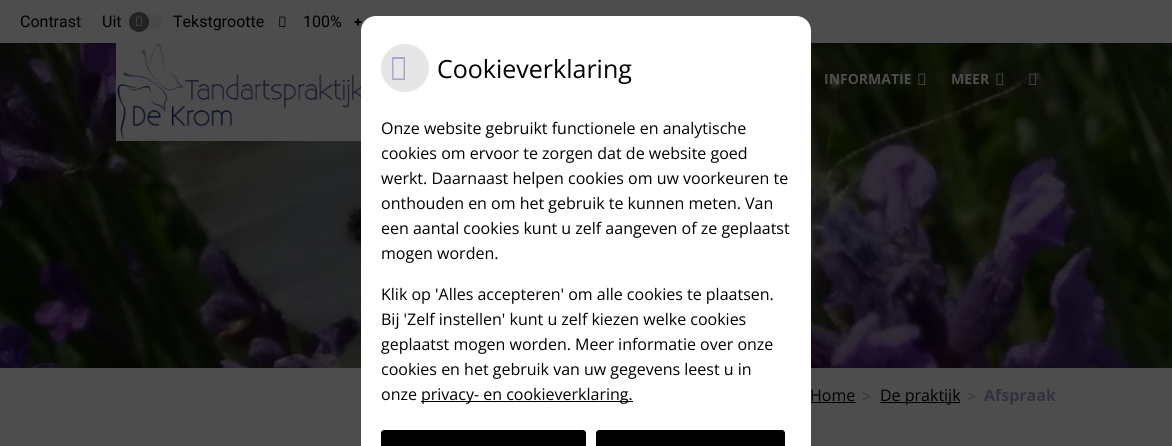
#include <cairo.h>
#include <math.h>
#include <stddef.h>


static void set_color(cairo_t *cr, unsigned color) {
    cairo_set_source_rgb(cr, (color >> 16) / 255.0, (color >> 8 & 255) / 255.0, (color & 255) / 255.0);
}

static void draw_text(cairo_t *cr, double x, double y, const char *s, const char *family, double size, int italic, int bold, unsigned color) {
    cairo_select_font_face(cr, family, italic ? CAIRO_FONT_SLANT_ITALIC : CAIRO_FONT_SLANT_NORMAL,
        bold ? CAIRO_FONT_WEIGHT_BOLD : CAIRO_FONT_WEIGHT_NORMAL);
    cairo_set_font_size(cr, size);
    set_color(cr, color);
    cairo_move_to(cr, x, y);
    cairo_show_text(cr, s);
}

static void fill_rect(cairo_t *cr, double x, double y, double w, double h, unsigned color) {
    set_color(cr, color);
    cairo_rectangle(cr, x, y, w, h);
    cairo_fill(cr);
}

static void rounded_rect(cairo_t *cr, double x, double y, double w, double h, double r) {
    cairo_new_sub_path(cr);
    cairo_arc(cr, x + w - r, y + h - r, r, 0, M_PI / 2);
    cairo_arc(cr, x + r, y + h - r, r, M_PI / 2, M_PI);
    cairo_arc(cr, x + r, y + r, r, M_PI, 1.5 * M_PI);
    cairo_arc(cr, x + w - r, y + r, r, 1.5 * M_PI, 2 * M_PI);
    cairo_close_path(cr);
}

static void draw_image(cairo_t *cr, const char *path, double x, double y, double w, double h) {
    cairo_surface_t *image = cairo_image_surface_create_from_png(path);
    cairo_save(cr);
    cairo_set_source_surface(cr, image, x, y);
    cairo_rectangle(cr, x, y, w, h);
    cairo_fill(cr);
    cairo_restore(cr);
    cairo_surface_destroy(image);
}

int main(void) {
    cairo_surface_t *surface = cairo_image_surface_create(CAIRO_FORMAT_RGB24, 1172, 446);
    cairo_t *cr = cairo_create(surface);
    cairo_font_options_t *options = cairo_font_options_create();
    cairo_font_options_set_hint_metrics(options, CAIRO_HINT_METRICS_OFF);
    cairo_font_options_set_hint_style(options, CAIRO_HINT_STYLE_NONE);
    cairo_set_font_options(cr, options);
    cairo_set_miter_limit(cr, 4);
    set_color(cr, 0x4D4D4D);
    cairo_paint(cr);
    draw_text(cr, 20, 27, "Contrast", "Roboto", 16, 0, 0, 0x000000);
    draw_text(cr, 102, 27, "Uit", "Roboto", 16, 0, 0, 0x000000);
    set_color(cr, 0x494848);
    rounded_rect(cr, 129, 15, 34, 14, 7);
    cairo_fill(cr);
    set_color(cr, 0x232323);
    cairo_arc(cr, 139, 22, 10, 0, 2 * M_PI);
    cairo_fill(cr);
    draw_image(cr, "assets/img1.png", 136, 16, 6, 10);
    draw_text(cr, 173, 27, "Tekstgrootte", "Roboto", 16, 0, 0, 0x000000);
    draw_image(cr, "assets/img2.png", 279, 16, 7, 11);
    draw_text(cr, 303, 27, "100%", "Roboto", 16, 0, 0, 0x000000);
    draw_text(cr, 354, 27, "+", "Noto Sans Black", 14, 0, 0, 0x000000);
    draw_image(cr, "assets/img3.png", 0, 43, 1172, 325);
    fill_rect(cr, 810, 402, 46, 1, 0x000000);
    set_color(cr, 0xFFFFFF);
    cairo_new_path(cr);
    cairo_move_to(cr, 376, 16);
    cairo_line_to(cr, 796, 16);
    cairo_curve_to(cr, 804.5, 16, 811, 22.5, 811, 31);
    cairo_line_to(cr, 811, 446);
    cairo_line_to(cr, 361, 446);
    cairo_line_to(cr, 361, 31);
    cairo_curve_to(cr, 361, 22.5, 367.5, 16, 376, 16);
    cairo_close_path(cr);
    cairo_fill(cr);
    set_color(cr, 0xE6E6E6);
    cairo_arc(cr, 405, 68, 24, 0, 2 * M_PI);
    cairo_fill(cr);
    set_color(cr, 0xA8A6CF);
    cairo_new_path(cr);
    cairo_move_to(cr, 392, 80);
    cairo_line_to(cr, 392, 57);
    cairo_line_to(cr, 405, 57);
    cairo_line_to(cr, 405, 80);
    cairo_close_path(cr);
    cairo_move_to(cr, 393.5, 78.5);
    cairo_line_to(cr, 403.5, 78.5);
    cairo_line_to(cr, 403.5, 59);
    cairo_line_to(cr, 393.5, 59);
    cairo_close_path(cr);
    cairo_fill(cr);
    draw_text(cr, 437, 78, "Cookieverklaring", "Open Sans", 25, 0, 0, 0x000000);
    draw_text(cr, 381, 134, "Onze website gebruikt functionele en analytische", "Open Sans", 16, 0, 0, 0x000000);
    draw_text(cr, 381, 159, "cookies om ervoor te zorgen dat de website goed", "Open Sans", 16, 0, 0, 0x000000);
    draw_text(cr, 381, 184, "werkt. Daarnaast helpen cookies om uw voorkeuren te", "Open Sans", 16, 0, 0, 0x000000);
    draw_text(cr, 381, 209, "onthouden en om het gebruik te kunnen meten. Van", "Open Sans", 16, 0, 0, 0x000000);
    draw_text(cr, 381, 234, "een aantal cookies kunt u zelf aangeven of ze geplaatst", "Open Sans", 16, 0, 0, 0x000000);
    draw_text(cr, 381, 259, "mogen worden.", "Open Sans", 16, 0, 0, 0x000000);
    draw_text(cr, 381, 300, "Klik op 'Alles accepteren' om alle cookies te plaatsen.", "Open Sans", 16, 0, 0, 0x000000);
    draw_text(cr, 381, 325, "Bij 'Zelf instellen' kunt u zelf kiezen welke cookies", "Open Sans", 16, 0, 0, 0x000000);
    draw_text(cr, 381, 350, "geplaatst mogen worden. Meer informatie over onze", "Open Sans", 16, 0, 0, 0x000000);
    draw_text(cr, 381, 375, "cookies en het gebruik van uw gegevens leest u in", "Open Sans", 16, 0, 0, 0x000000);
    draw_text(cr, 381, 400, "onze", "Open Sans", 16, 0, 0, 0x000000);
    fill_rect(cr, 421, 401, 212, 1, 0x000000);
    draw_text(cr, 421, 400, "privacy- en cookieverklaring.", "Open Sans", 16, 0, 0, 0x000000);
    cairo_new_path(cr);
    cairo_move_to(cr, 384, 430);
    cairo_line_to(cr, 583, 430);
    cairo_curve_to(cr, 584.5, 430, 586, 431.5, 586, 433);
    cairo_line_to(cr, 586, 446);
    cairo_line_to(cr, 381, 446);
    cairo_line_to(cr, 381, 433);
    cairo_curve_to(cr, 381, 431.5, 382.5, 430, 384, 430);
    cairo_close_path(cr);
    cairo_fill(cr);
    cairo_new_path(cr);
    cairo_move_to(cr, 599, 430);
    cairo_line_to(cr, 782, 430);
    cairo_curve_to(cr, 783.5, 430, 785, 431.5, 785, 433);
    cairo_line_to(cr, 785, 446);
    cairo_line_to(cr, 596, 446);
    cairo_line_to(cr, 596, 433);
    cairo_curve_to(cr, 596, 431.5, 597.5, 430, 599, 430);
    cairo_close_path(cr);
    cairo_fill(cr);
    draw_image(cr, "assets/img4.png", 116, 43, 245, 98);
    draw_text(cr, 824, 84, "INFORMATIE", "Open Sans", 14, 0, 1, 0x4D4D4D);
    draw_image(cr, "assets/img5.png", 918, 73, 8, 12);
    draw_text(cr, 951, 84, "MEER", "Open Sans", 14, 0, 1, 0x4D4D4D);
    draw_image(cr, "assets/img6.png", 996, 73, 8, 12);
    draw_image(cr, "assets/img7.png", 1029, 73, 8, 12);
    draw_text(cr, 810, 401, "Home", "Open Sans", 16, 0, 0, 0x000000);
    draw_text(cr, 862, 402, ">", "Open Sans", 16, 0, 0, 0x32323E);
    fill_rect(cr, 880, 402, 80, 1, 0x000000);
    draw_text(cr, 880, 401, "De praktijk", "Open Sans", 16, 0, 0, 0x000000);
    draw_text(cr, 967, 402, ">", "Open Sans", 16, 0, 0, 0x32323E);
    draw_text(cr, 984, 401, "Afspraak", "Open Sans", 16, 0, 1, 0x32323E);
    cairo_surface_write_to_png(surface, "output.png");
    cairo_font_options_destroy(options);
    cairo_destroy(cr);
    cairo_surface_destroy(surface);
    return 0;
}
